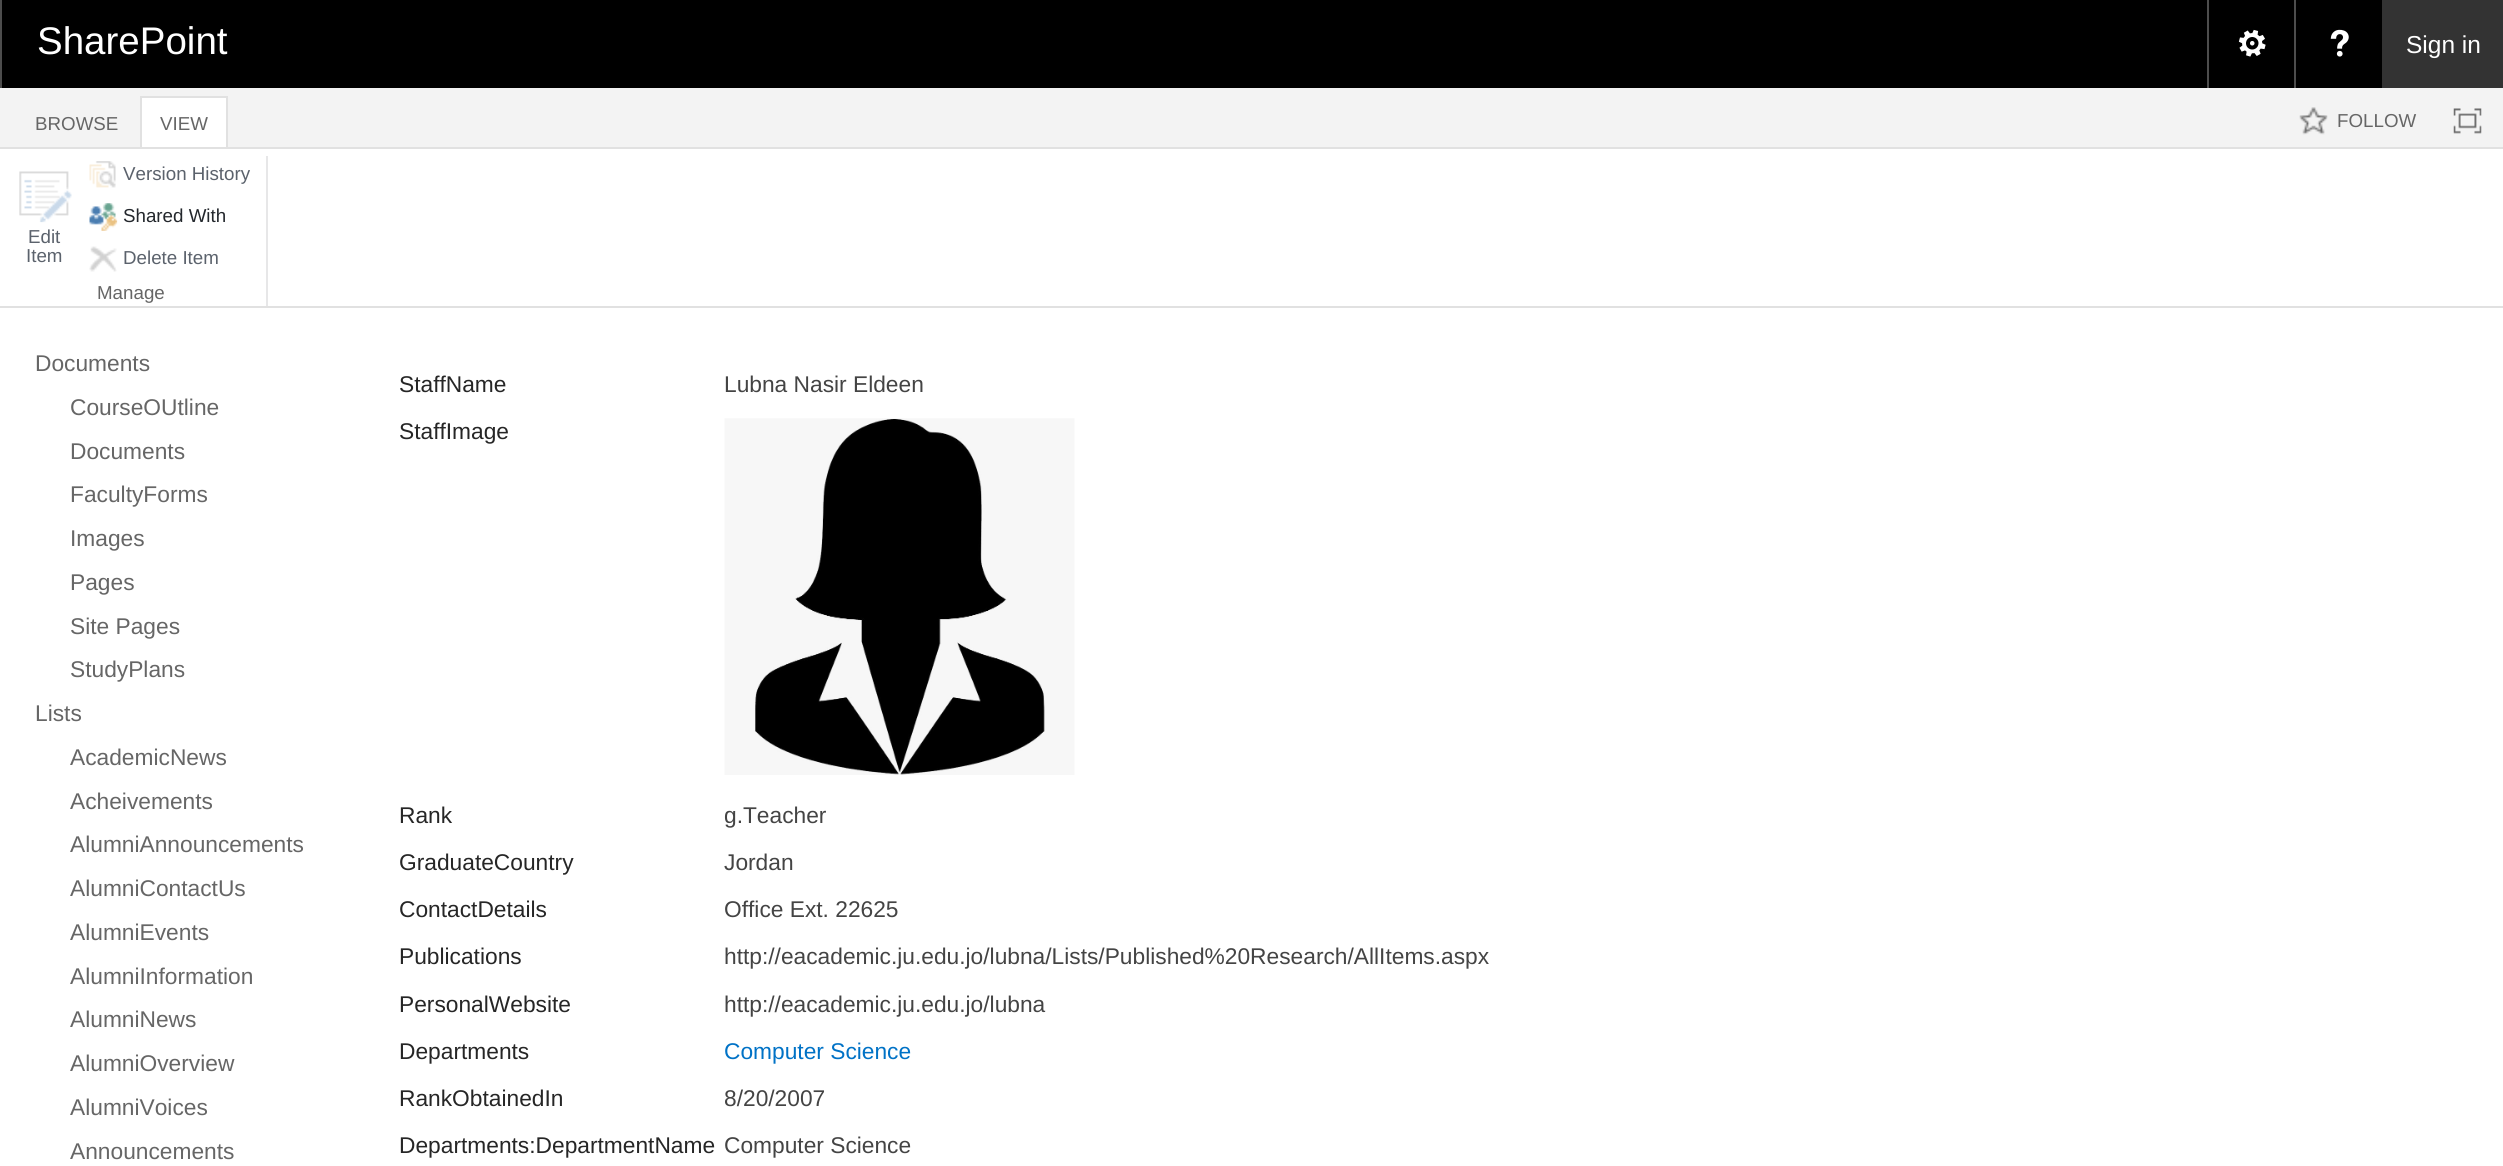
#include <cairo.h>
#include <math.h>
#include <stddef.h>


static void set_color(cairo_t *cr, unsigned color) {
    cairo_set_source_rgb(cr, (color >> 16) / 255.0, (color >> 8 & 255) / 255.0, (color & 255) / 255.0);
}

static void draw_text(cairo_t *cr, double x, double y, const char *s, const char *family, double size, int italic, int bold, unsigned color) {
    cairo_select_font_face(cr, family, italic ? CAIRO_FONT_SLANT_ITALIC : CAIRO_FONT_SLANT_NORMAL,
        bold ? CAIRO_FONT_WEIGHT_BOLD : CAIRO_FONT_WEIGHT_NORMAL);
    cairo_set_font_size(cr, size);
    set_color(cr, color);
    cairo_move_to(cr, x, y);
    cairo_show_text(cr, s);
}

static void fill_rect(cairo_t *cr, double x, double y, double w, double h, unsigned color) {
    set_color(cr, color);
    cairo_rectangle(cr, x, y, w, h);
    cairo_fill(cr);
}

static void draw_image(cairo_t *cr, const char *path, double x, double y, double w, double h) {
    cairo_surface_t *image = cairo_image_surface_create_from_png(path);
    cairo_save(cr);
    cairo_set_source_surface(cr, image, x, y);
    cairo_rectangle(cr, x, y, w, h);
    cairo_fill(cr);
    cairo_restore(cr);
    cairo_surface_destroy(image);
}

int main(void) {
    cairo_surface_t *surface = cairo_image_surface_create(CAIRO_FORMAT_RGB24, 2503, 1166);
    cairo_t *cr = cairo_create(surface);
    cairo_font_options_t *options = cairo_font_options_create();
    cairo_font_options_set_hint_metrics(options, CAIRO_HINT_METRICS_OFF);
    cairo_font_options_set_hint_style(options, CAIRO_HINT_STYLE_NONE);
    cairo_set_font_options(cr, options);
    cairo_set_miter_limit(cr, 4);
    set_color(cr, 0xFFFFFF);
    cairo_paint(cr);
    fill_rect(cr, 2, 0, 2380, 88, 0x000000);
    fill_rect(cr, 0, 0, 2, 88, 0x4D4D4D);
    draw_text(cr, 37, 54, "SharePoint", "Liberation Sans", 38.5, 0, 0, 0xFFFFFF);
    fill_rect(cr, 2207, 0, 2, 88, 0x4D4D4D);
    draw_image(cr, "assets/img1.png", 2238, 29, 28, 28);
    fill_rect(cr, 2294, 0, 2, 88, 0x4D4D4D);
    draw_image(cr, "assets/img2.png", 2330, 29, 19, 28);
    fill_rect(cr, 2382, 0, 121, 88, 0x333333);
    draw_text(cr, 2406, 53, "Sign in", "Liberation Sans", 24.5, 0, 0, 0xFFFFFF);
    fill_rect(cr, 0, 88, 2503, 59, 0xF3F3F3);
    fill_rect(cr, 0, 147, 2503, 2, 0xE1E1E1);
    draw_text(cr, 35, 130, "BROWSE", "Liberation Sans", 18.75, 0, 0, 0x666666);
    fill_rect(cr, 142, 98, 84, 49, 0xFFFFFF);
    fill_rect(cr, 140, 96, 88, 2, 0xE1E1E1);
    fill_rect(cr, 226, 96, 2, 51, 0xE1E1E1);
    fill_rect(cr, 140, 96, 2, 51, 0xE1E1E1);
    draw_text(cr, 160, 130, "VIEW", "Liberation Sans", 18.75, 0, 0, 0x666666);
    draw_image(cr, "assets/img3.png", 2299, 107, 29, 28);
    draw_text(cr, 2337, 127, "FOLLOW", "Liberation Sans", 18.75, 0, 0, 0x666666);
    draw_image(cr, "assets/img4.png", 2453, 108, 29, 26);
    fill_rect(cr, 0, 306, 2503, 2, 0xE1E1E1);
    draw_image(cr, "assets/img5.png", 19, 171, 53, 52);
    draw_text(cr, 28, 243, "Edit", "Liberation Sans", 18.75, 0, 0, 0x5B626C);
    draw_text(cr, 26, 262, "Item", "Liberation Sans", 18.75, 0, 0, 0x5B626C);
    draw_image(cr, "assets/img6.png", 89, 161, 27, 27);
    draw_text(cr, 123, 180, "Version History", "Liberation Sans", 18.75, 0, 0, 0x5B626C);
    draw_image(cr, "assets/img7.png", 89, 203, 29, 28);
    draw_text(cr, 123, 222, "Shared With", "Liberation Sans", 18.75, 0, 0, 0x23272C);
    draw_image(cr, "assets/img8.png", 89, 246, 28, 26);
    draw_text(cr, 123, 264, "Delete Item", "Liberation Sans", 18.75, 0, 0, 0x5B626C);
    draw_text(cr, 97, 299, "Manage", "Liberation Sans", 18.75, 0, 0, 0x666666);
    fill_rect(cr, 266, 156, 2, 150, 0xE7E7E8);
    draw_text(cr, 35, 371, "Documents", "Liberation Sans", 22.75, 0, 0, 0x666666);
    draw_text(cr, 70, 415, "CourseOUtline", "Liberation Sans", 22.75, 0, 0, 0x666666);
    draw_text(cr, 70, 459, "Documents", "Liberation Sans", 22.75, 0, 0, 0x666666);
    draw_text(cr, 70, 502, "FacultyForms", "Liberation Sans", 22.75, 0, 0, 0x666666);
    draw_text(cr, 70, 546, "Images", "Liberation Sans", 22.75, 0, 0, 0x666666);
    draw_text(cr, 70, 590, "Pages", "Liberation Sans", 22.75, 0, 0, 0x666666);
    draw_text(cr, 70, 634, "Site Pages", "Liberation Sans", 22.75, 0, 0, 0x666666);
    draw_text(cr, 70, 677, "StudyPlans", "Liberation Sans", 22.75, 0, 0, 0x666666);
    draw_text(cr, 35, 721, "Lists", "Liberation Sans", 22.75, 0, 0, 0x666666);
    draw_text(cr, 70, 765, "AcademicNews", "Liberation Sans", 22.75, 0, 0, 0x666666);
    draw_text(cr, 70, 809, "Acheivements", "Liberation Sans", 22.75, 0, 0, 0x666666);
    draw_text(cr, 70, 852, "AlumniAnnouncements", "Liberation Sans", 22.75, 0, 0, 0x666666);
    draw_text(cr, 70, 896, "AlumniContactUs", "Liberation Sans", 22.75, 0, 0, 0x666666);
    draw_text(cr, 70, 940, "AlumniEvents", "Liberation Sans", 22.75, 0, 0, 0x666666);
    draw_text(cr, 70, 984, "AlumniInformation", "Liberation Sans", 22.75, 0, 0, 0x666666);
    draw_text(cr, 70, 1027, "AlumniNews", "Liberation Sans", 22.75, 0, 0, 0x666666);
    draw_text(cr, 70, 1071, "AlumniOverview", "Liberation Sans", 22.75, 0, 0, 0x666666);
    draw_text(cr, 70, 1115, "AlumniVoices", "Liberation Sans", 22.75, 0, 0, 0x666666);
    draw_text(cr, 70, 1159, "Announcements", "Liberation Sans", 22.75, 0, 0, 0x666666);
    draw_text(cr, 399, 392, "StaffName", "Liberation Sans", 22.75, 0, 0, 0x262626);
    draw_text(cr, 724, 392, "Lubna Nasir Eldeen", "Liberation Sans", 22.75, 0, 0, 0x444444);
    draw_text(cr, 399, 439, "StaffImage", "Liberation Sans", 22.75, 0, 0, 0x262626);
    draw_image(cr, "assets/img9.png", 724, 418, 351, 357);
    draw_text(cr, 399, 823, "Rank", "Liberation Sans", 22.75, 0, 0, 0x262626);
    draw_text(cr, 724, 823, "g.Teacher", "Liberation Sans", 22.75, 0, 0, 0x444444);
    draw_text(cr, 399, 870, "GraduateCountry", "Liberation Sans", 22.75, 0, 0, 0x262626);
    draw_text(cr, 724, 870, "Jordan", "Liberation Sans", 22.75, 0, 0, 0x444444);
    draw_text(cr, 399, 917, "ContactDetails", "Liberation Sans", 22.75, 0, 0, 0x262626);
    draw_text(cr, 724, 917, "Office Ext. 22625", "Liberation Sans", 22.75, 0, 0, 0x444444);
    draw_text(cr, 399, 964, "Publications", "Liberation Sans", 22.75, 0, 0, 0x262626);
    draw_text(cr, 724, 964, "http://eacademic.ju.edu.jo/lubna/Lists/Published%20Research/AllItems.aspx", "Liberation Sans", 22.75, 0, 0, 0x444444);
    draw_text(cr, 399, 1012, "PersonalWebsite", "Liberation Sans", 22.75, 0, 0, 0x262626);
    draw_text(cr, 724, 1012, "http://eacademic.ju.edu.jo/lubna", "Liberation Sans", 22.75, 0, 0, 0x444444);
    draw_text(cr, 399, 1059, "Departments", "Liberation Sans", 22.75, 0, 0, 0x262626);
    draw_text(cr, 724, 1059, "Computer Science", "Liberation Sans", 22.75, 0, 0, 0x0072C6);
    draw_text(cr, 399, 1106, "RankObtainedIn", "Liberation Sans", 22.75, 0, 0, 0x262626);
    draw_text(cr, 724, 1106, "8/20/2007", "Liberation Sans", 22.75, 0, 0, 0x444444);
    draw_text(cr, 399, 1153, "Departments:DepartmentName", "Liberation Sans", 22.75, 0, 0, 0x262626);
    draw_text(cr, 724, 1153, "Computer Science", "Liberation Sans", 22.75, 0, 0, 0x444444);
    cairo_surface_write_to_png(surface, "output.png");
    cairo_font_options_destroy(options);
    cairo_destroy(cr);
    cairo_surface_destroy(surface);
    return 0;
}
